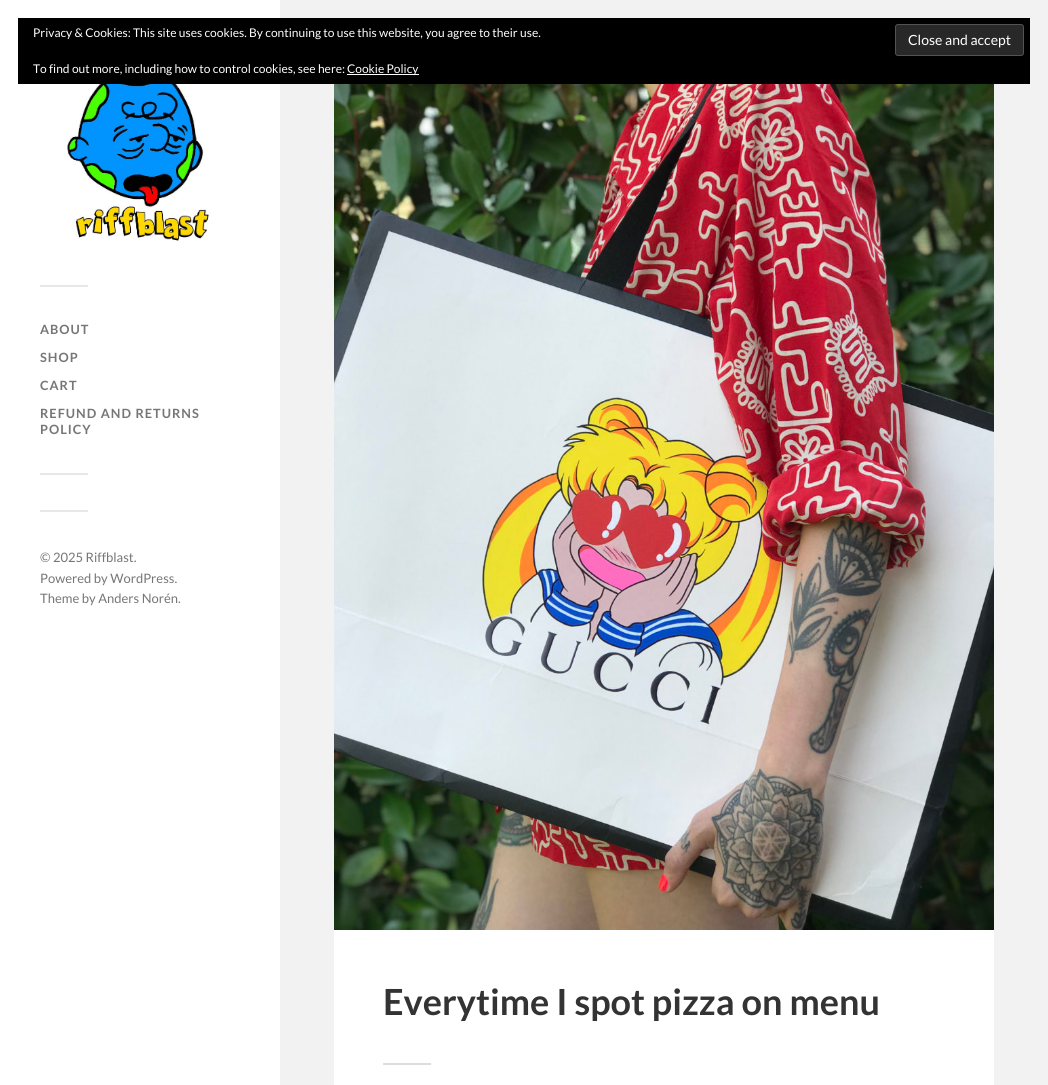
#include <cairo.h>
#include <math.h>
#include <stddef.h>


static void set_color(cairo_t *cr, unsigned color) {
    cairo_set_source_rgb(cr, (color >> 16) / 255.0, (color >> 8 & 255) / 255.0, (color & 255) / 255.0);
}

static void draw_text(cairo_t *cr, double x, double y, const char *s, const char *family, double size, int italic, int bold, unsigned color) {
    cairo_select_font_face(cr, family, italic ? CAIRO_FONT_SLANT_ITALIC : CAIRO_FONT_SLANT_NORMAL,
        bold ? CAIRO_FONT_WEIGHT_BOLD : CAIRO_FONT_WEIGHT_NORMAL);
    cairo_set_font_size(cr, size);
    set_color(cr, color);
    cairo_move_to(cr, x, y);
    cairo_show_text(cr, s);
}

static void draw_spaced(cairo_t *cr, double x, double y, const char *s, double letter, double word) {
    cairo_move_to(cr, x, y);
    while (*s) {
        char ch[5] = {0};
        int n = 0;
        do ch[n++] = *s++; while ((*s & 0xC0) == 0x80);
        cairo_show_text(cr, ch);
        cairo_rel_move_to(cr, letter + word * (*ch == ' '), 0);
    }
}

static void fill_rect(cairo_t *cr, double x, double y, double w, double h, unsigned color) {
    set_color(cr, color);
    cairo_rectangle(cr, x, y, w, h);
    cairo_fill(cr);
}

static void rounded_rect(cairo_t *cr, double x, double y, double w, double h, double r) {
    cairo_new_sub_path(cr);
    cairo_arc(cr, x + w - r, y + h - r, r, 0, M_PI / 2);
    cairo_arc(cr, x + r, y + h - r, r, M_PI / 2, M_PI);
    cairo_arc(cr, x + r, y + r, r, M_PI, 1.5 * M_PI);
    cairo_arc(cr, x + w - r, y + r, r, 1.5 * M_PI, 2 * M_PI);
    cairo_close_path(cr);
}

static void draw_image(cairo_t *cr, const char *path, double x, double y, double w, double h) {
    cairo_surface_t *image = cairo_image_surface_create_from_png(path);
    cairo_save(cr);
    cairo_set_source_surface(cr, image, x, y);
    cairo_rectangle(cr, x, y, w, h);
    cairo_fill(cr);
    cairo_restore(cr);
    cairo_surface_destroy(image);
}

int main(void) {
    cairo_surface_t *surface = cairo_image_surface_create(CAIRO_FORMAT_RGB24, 1048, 1085);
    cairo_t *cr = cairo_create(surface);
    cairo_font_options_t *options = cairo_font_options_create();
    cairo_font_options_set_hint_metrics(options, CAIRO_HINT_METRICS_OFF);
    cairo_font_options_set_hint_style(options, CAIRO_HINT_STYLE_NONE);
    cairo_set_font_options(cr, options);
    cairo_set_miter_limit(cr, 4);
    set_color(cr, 0xF2F2F2);
    cairo_paint(cr);
    fill_rect(cr, 0, 0, 280, 1085, 0xFFFFFF);
    fill_rect(cr, 18, 18, 1012, 66, 0x000000);
    draw_text(cr, 33, 37, "Privacy & Cookies: This site uses cookies. By continuing to use this website, you agree to their use.", "Lato", 12, 0, 0, 0xFFFFFF);
    set_color(cr, 0x282828);
    rounded_rect(cr, 895.5, 24.5, 128, 31, 2.5);
    cairo_fill_preserve(cr);
    set_color(cr, 0x535353);
    cairo_set_line_width(cr, 1);
    cairo_stroke(cr);
    draw_text(cr, 908, 45, "Close and accept", "Lato", 14, 0, 0, 0xFFFFFF);
    draw_text(cr, 33, 73, "To find out more, including how to control cookies, see here:", "Lato", 12, 0, 0, 0xFFFFFF);
    fill_rect(cr, 347, 74, 72, 1, 0xFFFFFF);
    draw_text(cr, 347, 73, "Cookie Policy", "Lato", 12, 0, 0, 0xFFFFFF);
    draw_image(cr, "assets/img1.png", 67, 84, 142, 157);
    fill_rect(cr, 40, 285, 48, 2, 0xE7E7E7);
    cairo_select_font_face(cr, "Lato", CAIRO_FONT_SLANT_NORMAL, CAIRO_FONT_WEIGHT_BOLD);
    cairo_set_font_size(cr, 12.75);
    set_color(cr, 0x767676);
    draw_spaced(cr, 40, 334, "ABOUT", 1, 0);
    draw_spaced(cr, 40, 362, "SHOP", 1, 0);
    draw_spaced(cr, 40, 390, "CART", 1, 0);
    draw_spaced(cr, 40, 418, "REFUND AND RETURNS", 1, 0);
    draw_spaced(cr, 40, 434, "POLICY", 1, 0);
    fill_rect(cr, 40, 473, 48, 2, 0xE7E7E7);
    fill_rect(cr, 40, 510, 48, 2, 0xE7E7E7);
    draw_text(cr, 40, 562, "© 2025 Riffblast.", "Lato", 13, 0, 0, 0x767676);
    draw_text(cr, 40, 583, "Powered by WordPress.", "Lato", 13, 0, 0, 0x767676);
    draw_text(cr, 40, 603, "Theme by Anders Norén.", "Lato", 13, 0, 0, 0x767676);
    fill_rect(cr, 334, 930, 660, 155, 0xFFFFFF);
    draw_image(cr, "assets/img2.png", 334, 84, 660, 846);
    draw_text(cr, 383, 1015, "Everytime I spot pizza on menu", "Lato", 36, 0, 1, 0x333333);
    fill_rect(cr, 383, 1063, 48, 2, 0xDDDDDD);
    cairo_surface_write_to_png(surface, "output.png");
    cairo_font_options_destroy(options);
    cairo_destroy(cr);
    cairo_surface_destroy(surface);
    return 0;
}
